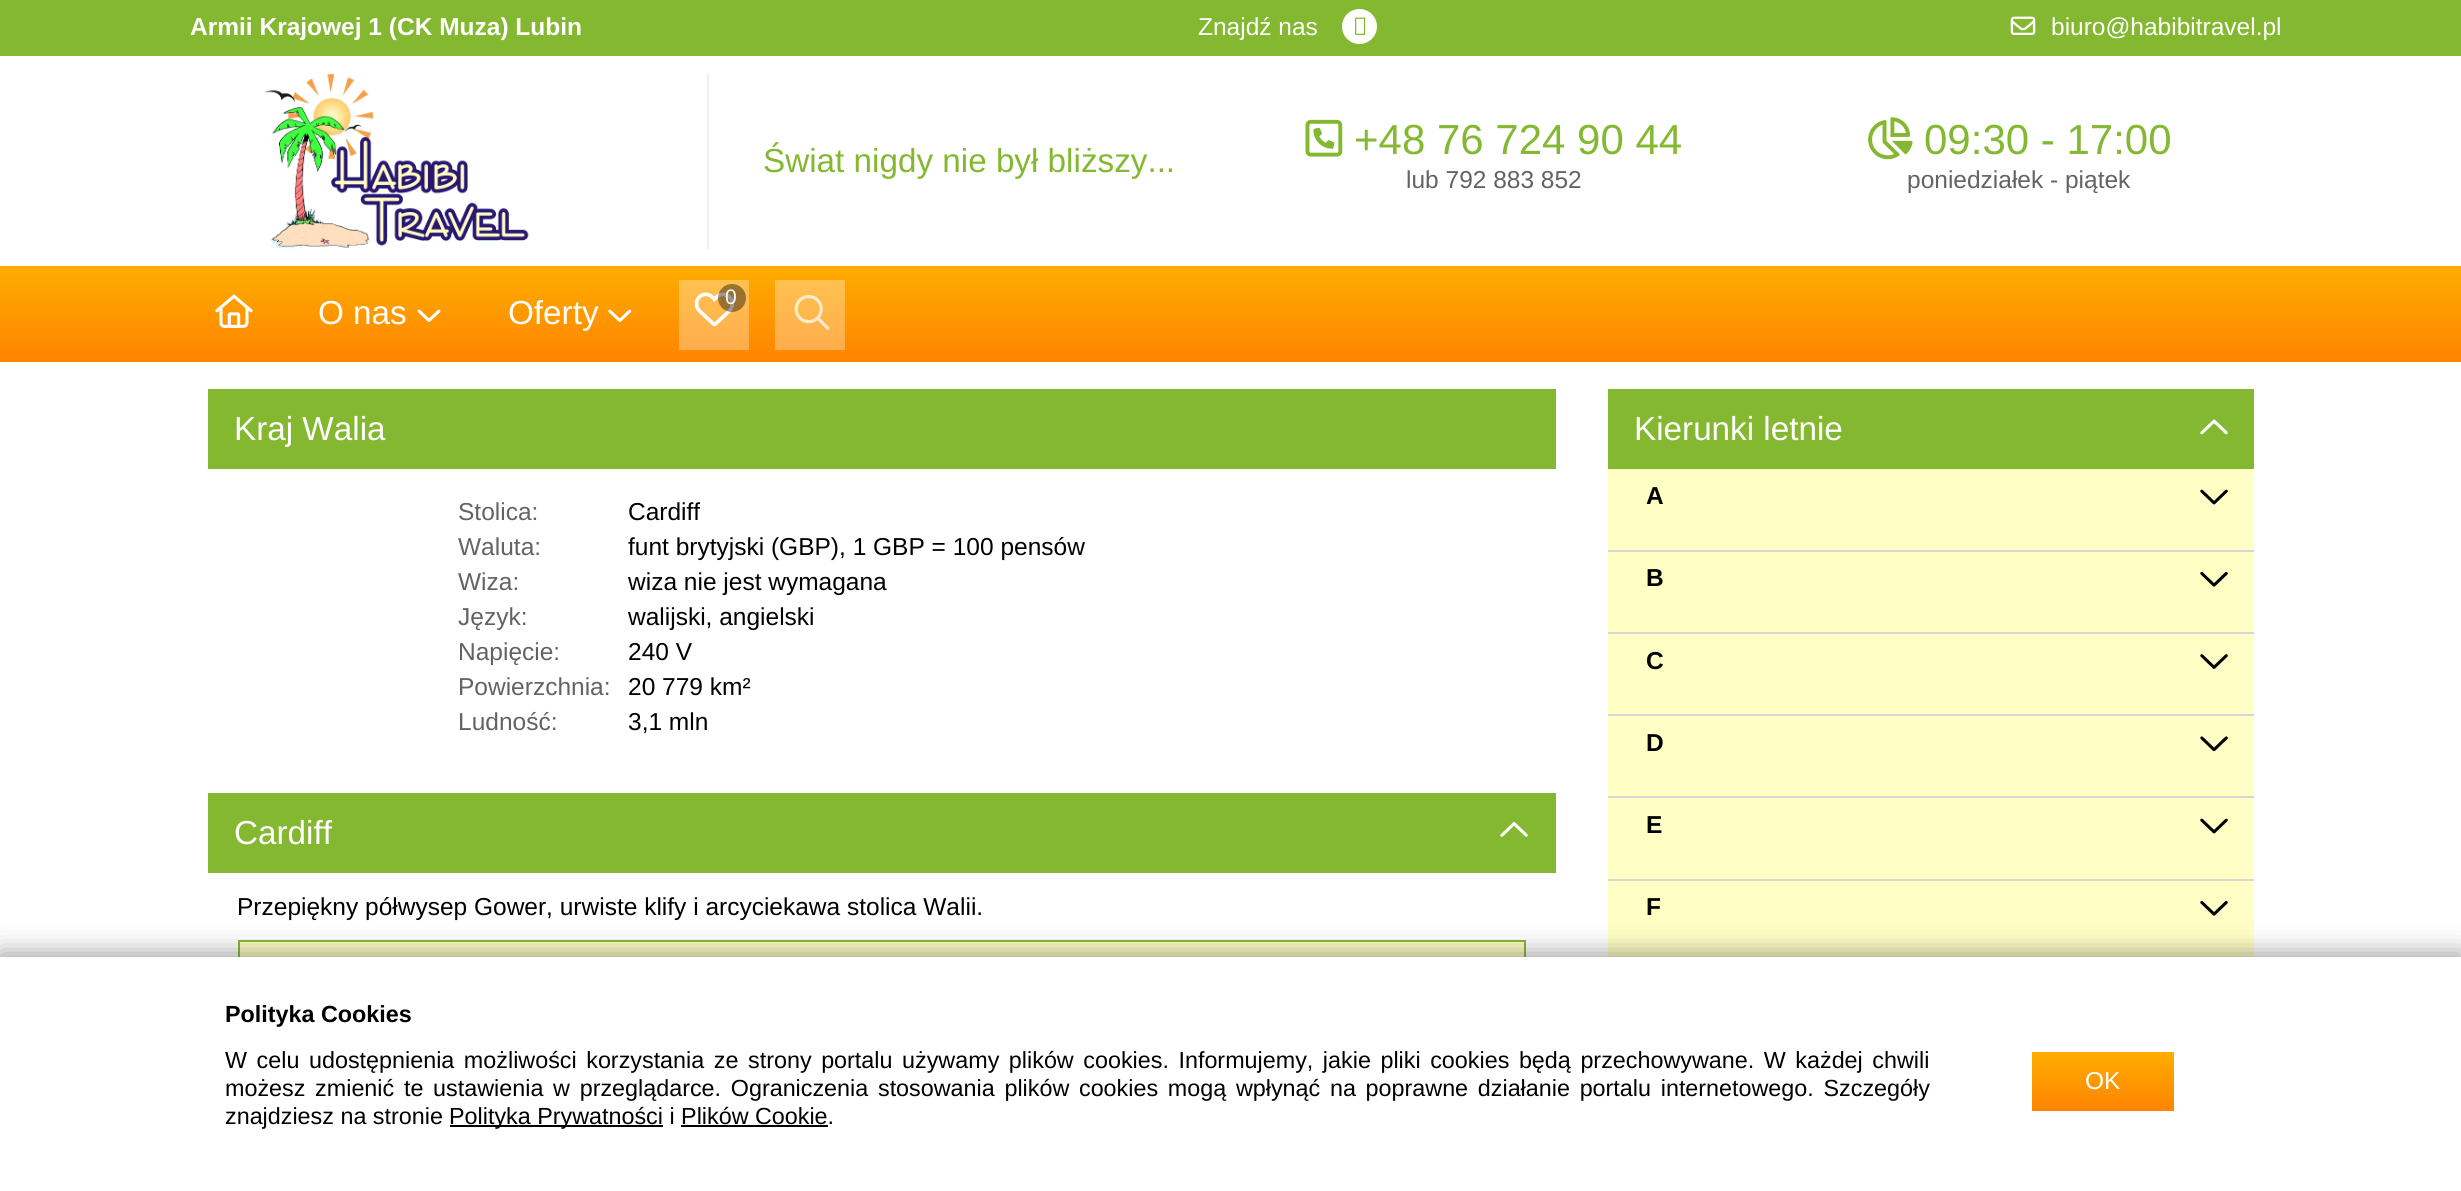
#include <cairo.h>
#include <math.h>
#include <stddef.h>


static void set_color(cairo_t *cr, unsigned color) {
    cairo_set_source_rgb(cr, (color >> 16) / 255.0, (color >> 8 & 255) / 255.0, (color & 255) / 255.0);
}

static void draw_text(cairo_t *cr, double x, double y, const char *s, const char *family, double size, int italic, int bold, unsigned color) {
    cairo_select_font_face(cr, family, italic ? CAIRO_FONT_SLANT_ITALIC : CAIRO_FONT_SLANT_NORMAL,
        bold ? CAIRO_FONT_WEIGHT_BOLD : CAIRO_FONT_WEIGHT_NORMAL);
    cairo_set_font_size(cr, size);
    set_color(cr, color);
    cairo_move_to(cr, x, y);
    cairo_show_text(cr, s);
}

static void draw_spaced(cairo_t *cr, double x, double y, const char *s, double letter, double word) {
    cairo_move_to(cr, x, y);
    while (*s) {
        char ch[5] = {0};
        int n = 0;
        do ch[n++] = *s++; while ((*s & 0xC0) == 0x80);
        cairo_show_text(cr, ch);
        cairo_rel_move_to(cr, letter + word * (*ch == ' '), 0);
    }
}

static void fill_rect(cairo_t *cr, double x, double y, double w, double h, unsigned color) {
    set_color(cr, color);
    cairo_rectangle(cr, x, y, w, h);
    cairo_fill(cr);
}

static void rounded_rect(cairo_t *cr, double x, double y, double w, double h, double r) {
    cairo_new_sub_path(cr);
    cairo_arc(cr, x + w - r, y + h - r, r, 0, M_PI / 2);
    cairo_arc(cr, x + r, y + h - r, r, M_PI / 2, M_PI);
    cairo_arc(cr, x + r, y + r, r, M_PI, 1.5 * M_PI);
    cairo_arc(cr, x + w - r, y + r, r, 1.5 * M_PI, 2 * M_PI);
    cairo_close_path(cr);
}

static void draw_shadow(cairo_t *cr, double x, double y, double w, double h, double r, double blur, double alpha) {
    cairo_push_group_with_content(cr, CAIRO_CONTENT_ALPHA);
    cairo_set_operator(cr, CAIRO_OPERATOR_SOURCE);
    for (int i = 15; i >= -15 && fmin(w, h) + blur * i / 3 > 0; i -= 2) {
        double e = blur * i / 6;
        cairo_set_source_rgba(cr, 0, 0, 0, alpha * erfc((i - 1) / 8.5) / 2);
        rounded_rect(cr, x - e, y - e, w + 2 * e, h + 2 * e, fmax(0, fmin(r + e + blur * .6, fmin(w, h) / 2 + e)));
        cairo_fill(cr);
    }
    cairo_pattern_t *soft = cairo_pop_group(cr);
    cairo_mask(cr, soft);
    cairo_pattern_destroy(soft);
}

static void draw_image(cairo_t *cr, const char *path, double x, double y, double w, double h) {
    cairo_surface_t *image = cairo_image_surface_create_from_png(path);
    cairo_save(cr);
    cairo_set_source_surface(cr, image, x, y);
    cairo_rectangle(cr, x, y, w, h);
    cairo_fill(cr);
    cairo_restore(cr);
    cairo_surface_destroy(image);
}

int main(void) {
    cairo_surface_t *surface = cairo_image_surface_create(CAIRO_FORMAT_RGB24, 2461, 1191);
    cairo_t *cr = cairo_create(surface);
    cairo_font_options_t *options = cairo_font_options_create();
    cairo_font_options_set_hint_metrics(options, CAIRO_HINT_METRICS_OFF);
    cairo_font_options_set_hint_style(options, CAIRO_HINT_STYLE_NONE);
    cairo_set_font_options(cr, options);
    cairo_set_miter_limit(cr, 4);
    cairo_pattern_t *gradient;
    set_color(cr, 0xFFFFFF);
    cairo_paint(cr);
    fill_rect(cr, 0, 0, 2461, 56, 0x84B831);
    draw_text(cr, 190, 35, "Armii Krajowej 1 (CK Muza) Lubin", "Liberation Sans", 24.5, 0, 1, 0xFFFFFF);
    draw_text(cr, 1198, 35, "Znajdź nas", "Liberation Sans", 24.5, 0, 0, 0xFFFFFF);
    cairo_new_path(cr);
    cairo_arc(cr, 1359.5, 26.5, 17.5, 0, 2 * M_PI);
    cairo_fill(cr);
    draw_image(cr, "assets/img1.png", 1355, 17, 11, 18);
    draw_image(cr, "assets/img2.png", 2010, 16, 26, 19);
    draw_text(cr, 2051, 35, "biuro@habibitravel.pl", "Liberation Sans", 24.5, 0, 0, 0xFFFFFF);
    draw_image(cr, "assets/img3.png", 264, 73, 265, 176);
    fill_rect(cr, 707, 74, 2, 175, 0xEEEEEE);
    draw_text(cr, 763, 172, "Świat nigdy nie był bliższy...", "Liberation Sans", 33.25, 0, 0, 0x84B831);
    draw_image(cr, "assets/img4.png", 1305, 119, 38, 38);
    draw_text(cr, 1354, 154, "+48 76 724 90 44", "Liberation Sans", 42, 0, 0, 0x84B831);
    draw_text(cr, 1406, 188, "lub 792 883 852", "Liberation Sans", 24.5, 0, 0, 0x636363);
    draw_image(cr, "assets/img5.png", 1868, 117, 45, 43);
    draw_text(cr, 1924, 154, "09:30 - 17:00", "Liberation Sans", 42, 0, 0, 0x84B831);
    draw_text(cr, 1907, 188, "poniedziałek - piątek", "Liberation Sans", 24.5, 0, 0, 0x636363);
    gradient = cairo_pattern_create_linear(1231, 266, 1231, 362);
    cairo_pattern_add_color_stop_rgba(gradient, 0, 1, 0.678, 0, 1);
    cairo_pattern_add_color_stop_rgba(gradient, 1, 1, 0.518, 0, 1);
    cairo_set_source(cr, gradient);
    cairo_pattern_destroy(gradient);
    cairo_rectangle(cr, 0, 266, 2461, 96);
    cairo_fill(cr);
    gradient = cairo_pattern_create_linear(1231, 266, 1231, 362);
    cairo_pattern_add_color_stop_rgba(gradient, 0, 1, 0.776, 0.302, 1);
    cairo_pattern_add_color_stop_rgba(gradient, 1, 1, 0.663, 0.302, 1);
    cairo_set_source(cr, gradient);
    cairo_pattern_destroy(gradient);
    cairo_rectangle(cr, 679, 280, 70, 70);
    cairo_fill(cr);
    cairo_rectangle(cr, 775, 280, 70, 70);
    cairo_fill(cr);
    draw_image(cr, "assets/img6.png", 215, 294, 38, 34);
    draw_text(cr, 318, 324, "O nas", "Liberation Sans", 33.25, 0, 0, 0xFFFFFF);
    draw_image(cr, "assets/img7.png", 417, 309, 24, 13);
    draw_text(cr, 508, 324, "Oferty", "Liberation Sans", 33.25, 0, 0, 0xFFFFFF);
    draw_image(cr, "assets/img8.png", 608, 309, 24, 13);
    draw_image(cr, "assets/img9.png", 694, 292, 41, 35);
    cairo_set_source_rgba(cr, 0, 0, 0, 0.4);
    cairo_arc(cr, 732, 298, 14, 0, 2 * M_PI);
    cairo_fill(cr);
    draw_text(cr, 725, 304, "0", "Liberation Sans", 21, 0, 0, 0xFFFFFF);
    draw_image(cr, "assets/img10.png", 794, 294, 36, 36);
    fill_rect(cr, 208, 389, 1348, 80, 0x84B831);
    draw_text(cr, 234, 440, "Kraj Walia", "Liberation Sans", 33.25, 0, 0, 0xFFFFFF);
    draw_text(cr, 458, 520, "Stolica:", "Liberation Sans", 24.5, 0, 0, 0x636363);
    draw_text(cr, 628, 520, "Cardiff", "Liberation Sans", 24.5, 0, 0, 0x000000);
    draw_text(cr, 458, 555, "Waluta:", "Liberation Sans", 24.5, 0, 0, 0x636363);
    draw_text(cr, 628, 555, "funt brytyjski (GBP), 1 GBP = 100 pensów", "Liberation Sans", 24.5, 0, 0, 0x000000);
    draw_text(cr, 458, 590, "Wiza:", "Liberation Sans", 24.5, 0, 0, 0x636363);
    draw_text(cr, 628, 590, "wiza nie jest wymagana", "Liberation Sans", 24.5, 0, 0, 0x000000);
    draw_text(cr, 458, 625, "Język:", "Liberation Sans", 24.5, 0, 0, 0x636363);
    draw_text(cr, 628, 625, "walijski, angielski", "Liberation Sans", 24.5, 0, 0, 0x000000);
    draw_text(cr, 458, 660, "Napięcie:", "Liberation Sans", 24.5, 0, 0, 0x636363);
    draw_text(cr, 628, 660, "240 V", "Liberation Sans", 24.5, 0, 0, 0x000000);
    draw_text(cr, 458, 695, "Powierzchnia:", "Liberation Sans", 24.5, 0, 0, 0x636363);
    draw_text(cr, 628, 695, "20 779 km²", "Liberation Sans", 24.5, 0, 0, 0x000000);
    draw_text(cr, 458, 730, "Ludność:", "Liberation Sans", 24.5, 0, 0, 0x636363);
    draw_text(cr, 628, 730, "3,1 mln", "Liberation Sans", 24.5, 0, 0, 0x000000);
    fill_rect(cr, 208, 793, 1348, 80, 0x84B831);
    draw_text(cr, 234, 844, "Cardiff", "Liberation Sans", 33.25, 0, 0, 0xFFFFFF);
    draw_image(cr, "assets/img11.png", 1500, 822, 28, 15);
    draw_text(cr, 237, 915, "Przepiękny półwysep Gower, urwiste klify i arcyciekawa stolica Walii.", "Liberation Sans", 24.5, 0, 0, 0x000000);
    fill_rect(cr, 240, 942, 1284, 15, 0xFFFFC5);
    cairo_rectangle(cr, 239, 941, 1286, 61);
    set_color(cr, 0x84B831);
    cairo_stroke(cr);
    fill_rect(cr, 1608, 389, 646, 80, 0x84B831);
    draw_text(cr, 1634, 440, "Kierunki letnie", "Liberation Sans", 33.25, 0, 0, 0xFFFFFF);
    draw_image(cr, "assets/img12.png", 2200, 419, 28, 16);
    fill_rect(cr, 1608, 469, 646, 81, 0xFFFFC5);
    draw_text(cr, 1646, 504, "A", "Liberation Sans", 24.5, 0, 1, 0x000000);
    draw_image(cr, "assets/img13.png", 2200, 489, 28, 16);
    fill_rect(cr, 1608, 552, 646, 80, 0xFFFFC5);
    fill_rect(cr, 1608, 550, 646, 2, 0xDBD5D5);
    draw_text(cr, 1646, 586, "B", "Liberation Sans", 24.5, 0, 1, 0x000000);
    draw_image(cr, "assets/img14.png", 2200, 571, 28, 16);
    fill_rect(cr, 1608, 634, 646, 80, 0xFFFFC5);
    fill_rect(cr, 1608, 632, 646, 2, 0xDBD5D5);
    draw_text(cr, 1646, 669, "C", "Liberation Sans", 24.5, 0, 1, 0x000000);
    draw_image(cr, "assets/img15.png", 2200, 654, 28, 15);
    fill_rect(cr, 1608, 716, 646, 80, 0xFFFFC5);
    fill_rect(cr, 1608, 714, 646, 2, 0xDBD5D5);
    draw_text(cr, 1646, 751, "D", "Liberation Sans", 24.5, 0, 1, 0x000000);
    draw_image(cr, "assets/img16.png", 2200, 736, 28, 16);
    fill_rect(cr, 1608, 798, 646, 81, 0xFFFFC5);
    fill_rect(cr, 1608, 796, 646, 2, 0xDBD5D5);
    draw_text(cr, 1646, 833, "E", "Liberation Sans", 24.5, 0, 1, 0x000000);
    draw_image(cr, "assets/img13.png", 2200, 818, 28, 16);
    fill_rect(cr, 1608, 881, 646, 76, 0xFFFFC5);
    fill_rect(cr, 1608, 879, 646, 2, 0xDBD5D5);
    draw_text(cr, 1646, 915, "F", "Liberation Sans", 24.5, 0, 1, 0x000000);
    draw_image(cr, "assets/img14.png", 2200, 900, 28, 16);
    set_color(cr, 0x323232);
    draw_shadow(cr, 0, 954, 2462, 234, 0, 13, 0.5);
    fill_rect(cr, 0, 957, 2461, 234, 0xFFFFFF);
    draw_text(cr, 225, 1022, "Polityka Cookies", "Liberation Sans", 23.33, 0, 1, 0x000000);
    cairo_select_font_face(cr, "Liberation Sans", CAIRO_FONT_SLANT_NORMAL, CAIRO_FONT_WEIGHT_NORMAL);
    draw_spaced(cr, 225, 1068, "W celu udostępnienia możliwości korzystania ze strony portalu używamy plików cookies. Informujemy, jakie pliki cookies będą przechowywane. W każdej chwili", 0, 3.1);
    draw_spaced(cr, 225, 1096, "możesz zmienić te ustawienia w przeglądarce. Ograniczenia stosowania plików cookies mogą wpłynąć na poprawne działanie portalu internetowego. Szczegóły", 0, 3.25);
    draw_text(cr, 225, 1124, "znajdziesz na stronie", "Liberation Sans", 23.33, 0, 0, 0x000000);
    fill_rect(cr, 450, 1125, 213, 2, 0x000000);
    draw_text(cr, 449, 1124, "Polityka Prywatności i Plików Cookie.", "Liberation Sans", 23.33, 0, 0, 0x000000);
    fill_rect(cr, 681, 1125, 147, 2, 0x000000);
    gradient = cairo_pattern_create_linear(2103, 1052, 2103, 1111);
    cairo_pattern_add_color_stop_rgba(gradient, 0, 1, 0.678, 0, 1);
    cairo_pattern_add_color_stop_rgba(gradient, 1, 1, 0.518, 0, 1);
    cairo_set_source(cr, gradient);
    cairo_pattern_destroy(gradient);
    cairo_rectangle(cr, 2032, 1052, 142, 59);
    cairo_fill(cr);
    draw_text(cr, 2085, 1089, "OK", "Liberation Sans", 24.5, 0, 0, 0xFFFFFF);
    cairo_surface_write_to_png(surface, "output.png");
    cairo_font_options_destroy(options);
    cairo_destroy(cr);
    cairo_surface_destroy(surface);
    return 0;
}
